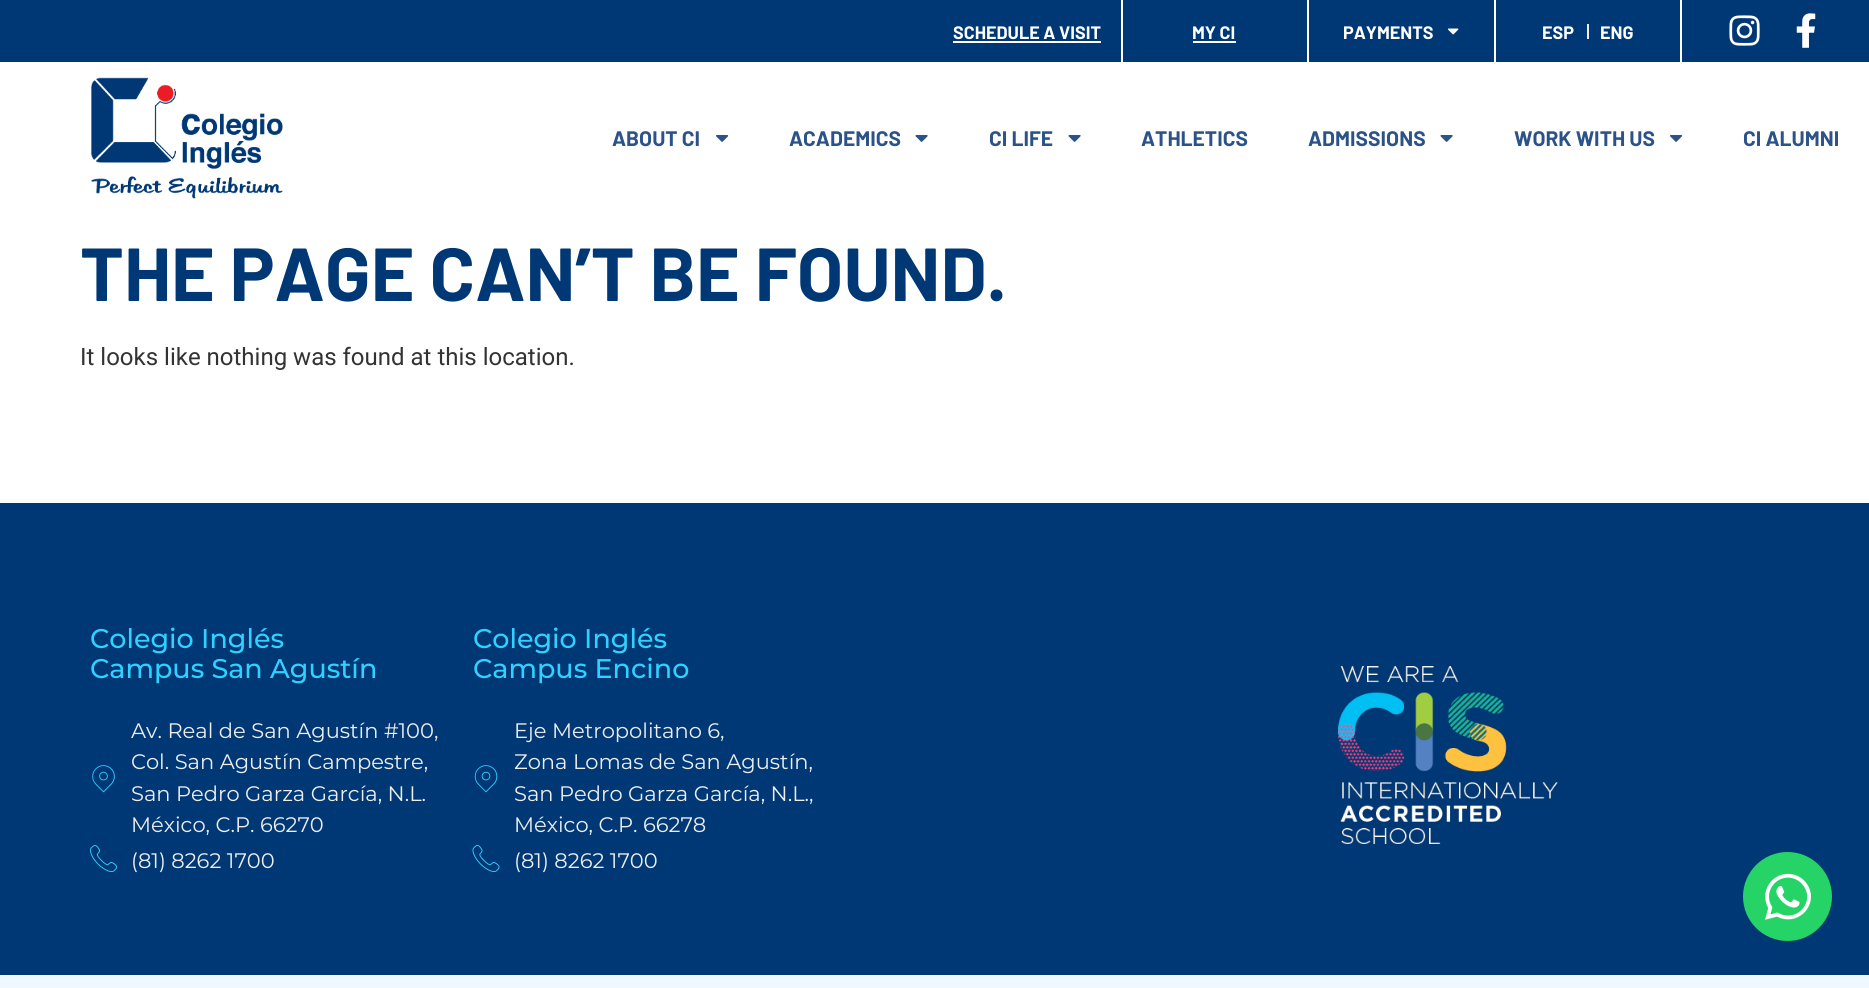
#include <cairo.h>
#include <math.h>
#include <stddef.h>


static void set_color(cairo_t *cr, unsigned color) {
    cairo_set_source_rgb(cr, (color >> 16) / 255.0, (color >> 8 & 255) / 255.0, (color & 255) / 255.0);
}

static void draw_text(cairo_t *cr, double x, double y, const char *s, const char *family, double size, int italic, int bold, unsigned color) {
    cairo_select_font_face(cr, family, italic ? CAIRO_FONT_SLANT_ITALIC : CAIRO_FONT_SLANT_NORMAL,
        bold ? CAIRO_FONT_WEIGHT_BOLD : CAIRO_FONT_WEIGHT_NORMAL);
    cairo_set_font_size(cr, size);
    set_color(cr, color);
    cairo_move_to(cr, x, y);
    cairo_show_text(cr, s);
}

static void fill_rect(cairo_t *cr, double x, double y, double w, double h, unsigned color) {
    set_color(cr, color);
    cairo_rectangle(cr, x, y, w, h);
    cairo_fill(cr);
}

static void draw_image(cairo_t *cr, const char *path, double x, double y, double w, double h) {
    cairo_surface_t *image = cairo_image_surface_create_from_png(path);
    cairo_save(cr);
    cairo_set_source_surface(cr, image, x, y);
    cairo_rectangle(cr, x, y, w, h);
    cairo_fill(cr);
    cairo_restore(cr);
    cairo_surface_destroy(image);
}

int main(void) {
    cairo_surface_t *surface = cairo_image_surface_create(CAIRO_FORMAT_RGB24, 1869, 988);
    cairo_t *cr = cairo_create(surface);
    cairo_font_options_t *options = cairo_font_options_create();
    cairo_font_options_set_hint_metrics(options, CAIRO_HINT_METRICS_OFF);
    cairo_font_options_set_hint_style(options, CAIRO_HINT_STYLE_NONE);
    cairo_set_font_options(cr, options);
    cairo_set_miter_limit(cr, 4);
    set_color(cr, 0xFFFFFF);
    cairo_paint(cr);
    fill_rect(cr, 0, 0, 1869, 62, 0x003875);
    fill_rect(cr, 1121, 0, 2, 62, 0xFFFFFF);
    draw_text(cr, 953, 39, "SCHEDULE A VISIT", "Barlow", 18, 0, 1, 0xFFFFFF);
    fill_rect(cr, 953, 41, 148, 2, 0xFFFFFF);
    fill_rect(cr, 1307, 0, 2, 62, 0xFFFFFF);
    draw_text(cr, 1192, 39, "MY CI", "Barlow", 18, 0, 1, 0xFFFFFF);
    fill_rect(cr, 1193, 41, 43, 2, 0xFFFFFF);
    fill_rect(cr, 1494, 0, 2, 62, 0xFFFFFF);
    draw_text(cr, 1343, 39, "PAYMENTS", "Barlow", 18, 0, 1, 0xFFFFFF);
    draw_image(cr, "assets/img1.png", 1447, 28, 12, 7);
    fill_rect(cr, 1680, 0, 2, 62, 0xFFFFFF);
    draw_text(cr, 1542, 39, "ESP", "Barlow", 18, 0, 1, 0xFFFFFF);
    fill_rect(cr, 1587, 24, 2, 15, 0xEEEEEE);
    draw_text(cr, 1600, 39, "ENG", "Barlow", 18, 0, 1, 0xFFFFFF);
    draw_image(cr, "assets/img2.png", 1729, 15, 31, 31);
    draw_image(cr, "assets/img3.png", 1796, 13, 20, 35);
    draw_image(cr, "assets/img4.png", 91, 77, 192, 122);
    draw_text(cr, 612, 146, "ABOUT CI", "Barlow", 21, 0, 1, 0x2B5289);
    draw_image(cr, "assets/img5.png", 716, 135, 13, 7);
    draw_text(cr, 789, 146, "ACADEMICS", "Barlow", 21, 0, 1, 0x2B5289);
    draw_image(cr, "assets/img6.png", 915, 135, 13, 7);
    draw_text(cr, 989, 146, "CI LIFE", "Barlow", 21, 0, 1, 0x2B5289);
    draw_image(cr, "assets/img6.png", 1068, 135, 13, 7);
    draw_text(cr, 1141, 146, "ATHLETICS", "Barlow", 21, 0, 1, 0x2B5289);
    draw_text(cr, 1308, 146, "ADMISSIONS", "Barlow", 21, 0, 1, 0x2B5289);
    draw_image(cr, "assets/img6.png", 1440, 135, 13, 7);
    draw_text(cr, 1514, 146, "WORK WITH US", "Barlow", 21, 0, 1, 0x2B5289);
    draw_image(cr, "assets/img5.png", 1670, 135, 13, 7);
    draw_text(cr, 1743, 146, "CI ALUMNI", "Barlow", 21, 0, 1, 0x2B5289);
    draw_text(cr, 80, 301, "THE PAGE CAN’T BE FOUND.", "Barlow", 75, 0, 1, 0x003875);
    draw_text(cr, 80, 365, "It looks like nothing was found at this location.", "Roboto", 24, 0, 0, 0x333333);
    fill_rect(cr, 0, 503, 1869, 472, 0x003875);
    draw_text(cr, 90, 648, "Colegio Inglés", "Montserrat Medium", 27, 0, 0, 0x30D0FF);
    draw_text(cr, 90, 678, "Campus San Agustín", "Montserrat Medium", 27, 0, 0, 0x30D0FF);
    draw_image(cr, "assets/img7.png", 92, 765, 23, 28);
    draw_text(cr, 131, 738, "Av. Real de San Agustín #100,", "Montserrat", 21, 0, 0, 0xEEEEEE);
    draw_text(cr, 131, 769, "Col. San Agustín Campestre,", "Montserrat", 21, 0, 0, 0xEEEEEE);
    draw_text(cr, 131, 801, "San Pedro Garza García, N.L.", "Montserrat", 21, 0, 0, 0xEEEEEE);
    draw_text(cr, 131, 832, "México, C.P. 66270", "Montserrat", 21, 0, 0, 0xEEEEEE);
    draw_image(cr, "assets/img8.png", 90, 845, 27, 27);
    draw_text(cr, 131, 868, "(81) 8262 1700", "Montserrat", 21, 0, 0, 0xEEEEEE);
    draw_text(cr, 473, 648, "Colegio Inglés", "Montserrat Medium", 27, 0, 0, 0x30D0FF);
    draw_text(cr, 473, 678, "Campus Encino", "Montserrat Medium", 27, 0, 0, 0x30D0FF);
    draw_image(cr, "assets/img9.png", 474, 765, 24, 28);
    draw_text(cr, 514, 738, "Eje Metropolitano 6,", "Montserrat", 21, 0, 0, 0xEEEEEE);
    draw_text(cr, 514, 769, "Zona Lomas de San Agustín,", "Montserrat", 21, 0, 0, 0xEEEEEE);
    draw_text(cr, 514, 801, "San Pedro Garza García, N.L.,", "Montserrat", 21, 0, 0, 0xEEEEEE);
    draw_text(cr, 514, 832, "México, C.P. 66278", "Montserrat", 21, 0, 0, 0xEEEEEE);
    draw_image(cr, "assets/img10.png", 472, 845, 28, 27);
    draw_text(cr, 514, 868, "(81) 8262 1700", "Montserrat", 21, 0, 0, 0xEEEEEE);
    draw_image(cr, "assets/img11.png", 1338, 666, 220, 178);
    set_color(cr, 0x25D366);
    cairo_arc(cr, 1787.5, 896.5, 44.5, 0, 2 * M_PI);
    cairo_fill(cr);
    draw_image(cr, "assets/img12.png", 1765, 873, 46, 47);
    fill_rect(cr, 0, 975, 1869, 13, 0xEEF8FD);
    cairo_surface_write_to_png(surface, "output.png");
    cairo_font_options_destroy(options);
    cairo_destroy(cr);
    cairo_surface_destroy(surface);
    return 0;
}
